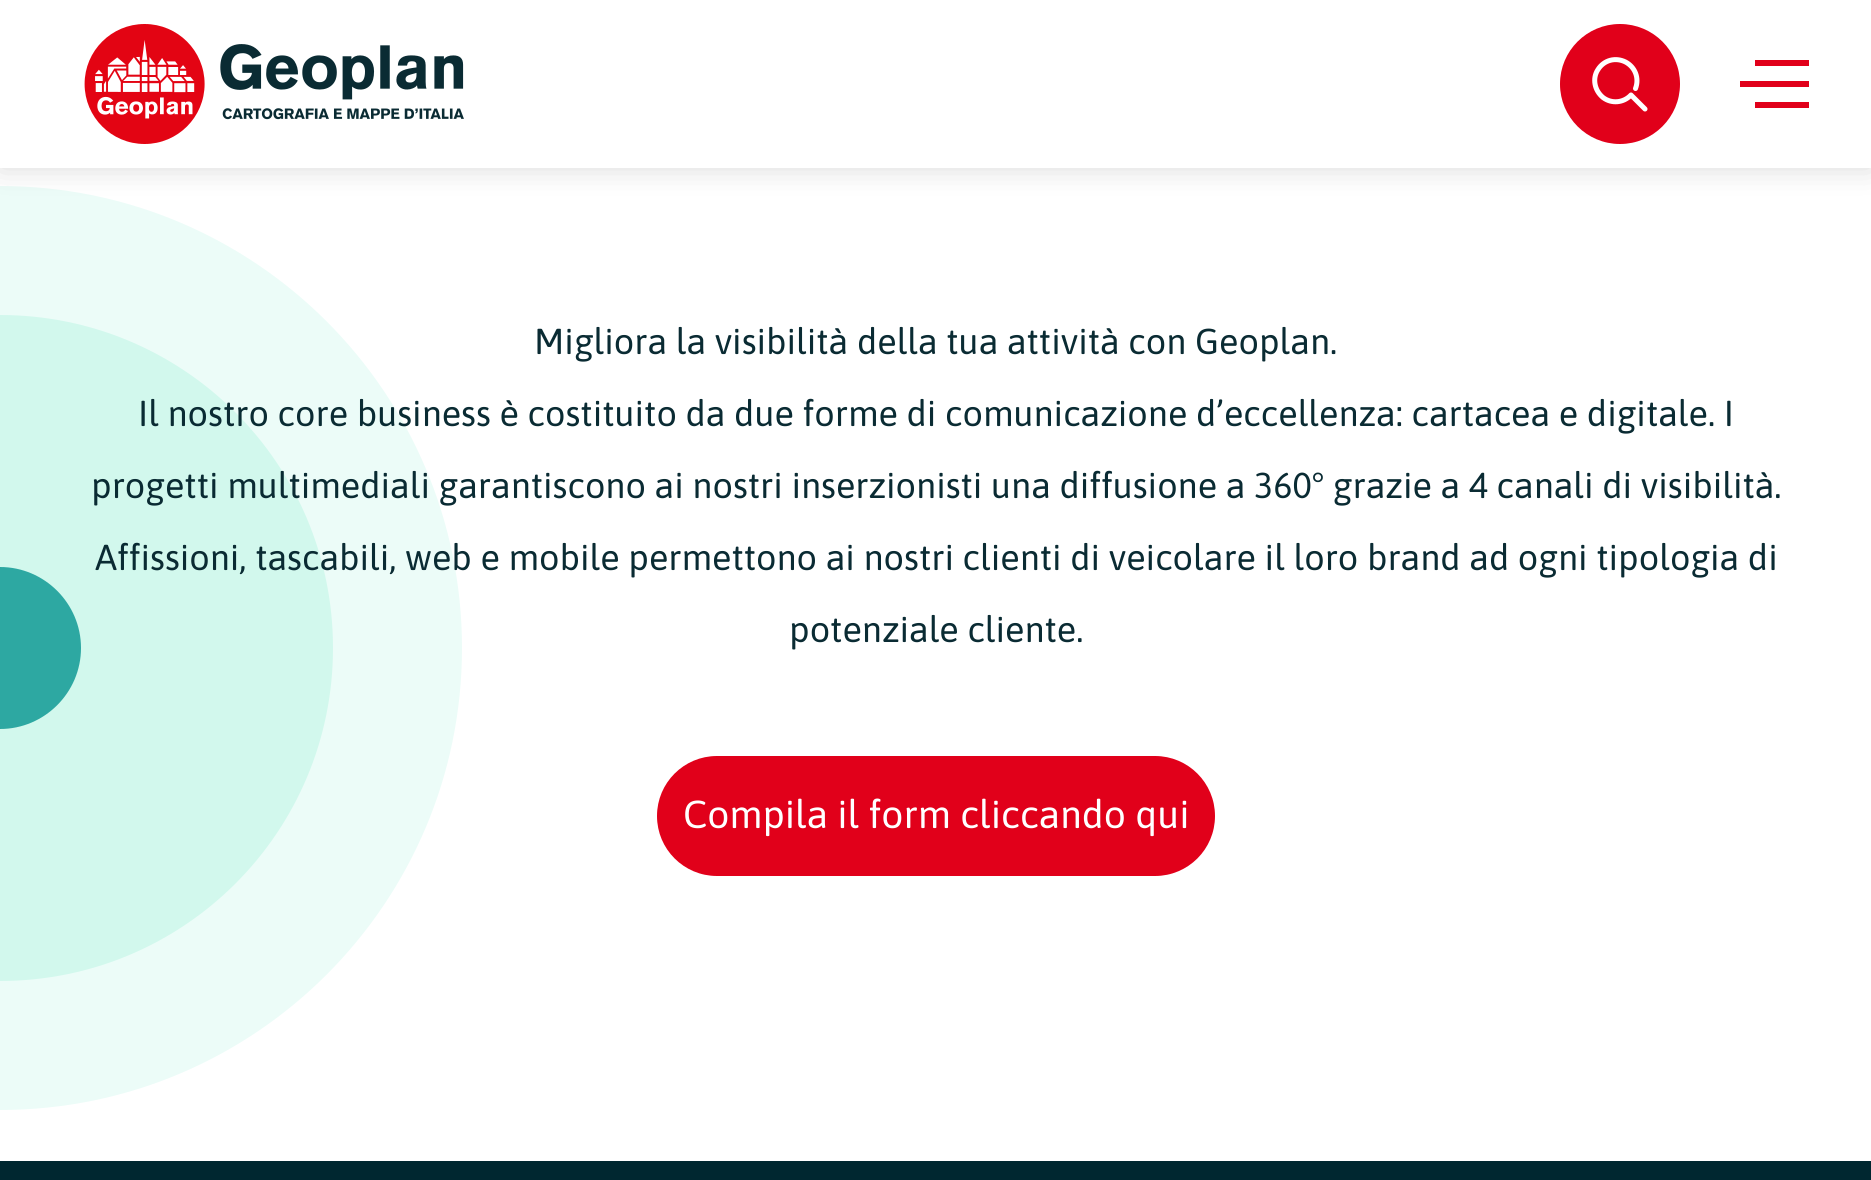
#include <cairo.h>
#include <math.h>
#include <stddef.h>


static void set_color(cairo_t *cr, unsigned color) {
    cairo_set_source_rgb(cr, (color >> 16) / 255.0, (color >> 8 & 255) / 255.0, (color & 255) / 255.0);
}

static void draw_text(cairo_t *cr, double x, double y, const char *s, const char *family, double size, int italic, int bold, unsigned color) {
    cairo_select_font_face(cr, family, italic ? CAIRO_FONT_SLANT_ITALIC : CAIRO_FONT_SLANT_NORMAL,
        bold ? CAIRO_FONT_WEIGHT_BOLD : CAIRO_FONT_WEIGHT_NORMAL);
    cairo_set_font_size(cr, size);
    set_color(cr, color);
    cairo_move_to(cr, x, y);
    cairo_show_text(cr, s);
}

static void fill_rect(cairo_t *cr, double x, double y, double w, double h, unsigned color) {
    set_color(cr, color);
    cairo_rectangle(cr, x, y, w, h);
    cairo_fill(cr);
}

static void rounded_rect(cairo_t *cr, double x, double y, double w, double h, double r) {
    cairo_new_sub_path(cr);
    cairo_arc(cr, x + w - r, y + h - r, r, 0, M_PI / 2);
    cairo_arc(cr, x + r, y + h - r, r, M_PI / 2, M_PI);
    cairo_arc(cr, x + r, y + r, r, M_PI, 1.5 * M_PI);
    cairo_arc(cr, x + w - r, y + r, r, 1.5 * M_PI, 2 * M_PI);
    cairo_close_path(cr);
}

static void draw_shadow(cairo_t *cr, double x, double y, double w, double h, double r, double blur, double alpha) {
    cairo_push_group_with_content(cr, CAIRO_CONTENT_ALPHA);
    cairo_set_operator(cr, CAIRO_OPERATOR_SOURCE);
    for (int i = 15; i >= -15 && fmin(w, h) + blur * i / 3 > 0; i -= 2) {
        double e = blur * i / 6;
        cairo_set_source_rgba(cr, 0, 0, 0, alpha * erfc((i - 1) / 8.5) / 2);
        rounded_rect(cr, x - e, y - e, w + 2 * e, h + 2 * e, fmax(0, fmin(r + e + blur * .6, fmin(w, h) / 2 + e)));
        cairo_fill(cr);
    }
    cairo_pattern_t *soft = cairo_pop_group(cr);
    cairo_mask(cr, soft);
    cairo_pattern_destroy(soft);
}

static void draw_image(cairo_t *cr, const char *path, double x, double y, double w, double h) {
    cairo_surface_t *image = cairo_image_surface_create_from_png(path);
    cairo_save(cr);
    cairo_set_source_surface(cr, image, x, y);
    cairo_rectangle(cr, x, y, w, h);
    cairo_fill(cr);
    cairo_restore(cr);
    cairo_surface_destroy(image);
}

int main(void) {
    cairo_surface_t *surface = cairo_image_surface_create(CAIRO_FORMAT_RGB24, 1871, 1180);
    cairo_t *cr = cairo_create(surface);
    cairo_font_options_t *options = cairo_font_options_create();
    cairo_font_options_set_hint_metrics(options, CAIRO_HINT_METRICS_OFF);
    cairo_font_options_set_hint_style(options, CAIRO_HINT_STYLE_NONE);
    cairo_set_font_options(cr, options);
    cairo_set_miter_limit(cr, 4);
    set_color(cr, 0xFFFFFF);
    cairo_paint(cr);
    set_color(cr, 0xECFCF8);
    cairo_new_path(cr);
    cairo_move_to(cr, 0, 186);
    cairo_curve_to(cr, 255, 186, 462, 393, 462, 648);
    cairo_curve_to(cr, 462, 903, 255, 1110, 0, 1110);
    cairo_close_path(cr);
    cairo_fill(cr);
    set_color(cr, 0x000000);
    draw_shadow(cr, 0, 0, 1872, 168, 0, 15, 0.15);
    fill_rect(cr, 0, 0, 1871, 168, 0xFFFFFF);
    draw_image(cr, "assets/img1.png", 84, 24, 380, 120);
    set_color(cr, 0xE1001A);
    cairo_arc(cr, 1620, 84, 60, 0, 2 * M_PI);
    cairo_fill(cr);
    cairo_new_path(cr);
    cairo_move_to(cr, 1635.5, 88.5);
    cairo_curve_to(cr, 1639.5, 78, 1635, 67, 1625.5, 62);
    cairo_curve_to(cr, 1615.5, 57, 1604, 60, 1598, 69.5);
    cairo_curve_to(cr, 1592, 78.5, 1594.5, 90.5, 1603, 97.5);
    cairo_curve_to(cr, 1611.5, 104, 1623.5, 103, 1631, 95);
    cairo_move_to(cr, 1631, 95);
    cairo_line_to(cr, 1645, 109);
    set_color(cr, 0xFFFFFF);
    cairo_set_line_width(cr, 5);
    cairo_set_line_cap(cr, CAIRO_LINE_CAP_ROUND);
    cairo_set_line_join(cr, CAIRO_LINE_JOIN_ROUND);
    cairo_stroke(cr);
    fill_rect(cr, 1755, 60, 54, 6, 0xE1001A);
    fill_rect(cr, 1740, 81, 69, 6, 0xE1001A);
    fill_rect(cr, 1755, 102, 54, 6, 0xE1001A);
    set_color(cr, 0xD2F8ED);
    cairo_new_path(cr);
    cairo_move_to(cr, 0, 315);
    cairo_curve_to(cr, 184, 315, 333, 464, 333, 648);
    cairo_curve_to(cr, 333, 832, 184, 981, 0, 981);
    cairo_close_path(cr);
    cairo_fill(cr);
    set_color(cr, 0x2DA8A2);
    cairo_new_path(cr);
    cairo_move_to(cr, 0, 567);
    cairo_curve_to(cr, 44.5, 567, 81, 603.5, 81, 648);
    cairo_curve_to(cr, 81, 692.5, 44.5, 729, 0, 729);
    cairo_close_path(cr);
    cairo_fill(cr);
    draw_text(cr, 534, 354, "Migliora la visibilità della tua attività con Geoplan.", "Asap", 36, 0, 0, 0x0A2B33);
    draw_text(cr, 138, 426, "Il nostro core business è costituito da due forme di comunicazione d’eccellenza: cartacea e digitale. I", "Asap", 36, 0, 0, 0x0A2B33);
    draw_text(cr, 91, 498, "progetti multimediali garantiscono ai nostri inserzionisti una diffusione a 360° grazie a 4 canali di visibilità.", "Asap", 36, 0, 0, 0x0A2B33);
    draw_text(cr, 95, 570, "Affissioni, tascabili, web e mobile permettono ai nostri clienti di veicolare il loro brand ad ogni tipologia di", "Asap", 36, 0, 0, 0x0A2B33);
    draw_text(cr, 789, 642, "potenziale cliente.", "Asap", 36, 0, 0, 0x0A2B33);
    set_color(cr, 0xE1001A);
    rounded_rect(cr, 657, 756, 558, 120, 60);
    cairo_fill(cr);
    draw_text(cr, 683, 828, "Compila il form cliccando qui", "Asap", 39, 0, 0, 0xFFFFFF);
    fill_rect(cr, 0, 1161, 1871, 19, 0x002730);
    cairo_surface_write_to_png(surface, "output.png");
    cairo_font_options_destroy(options);
    cairo_destroy(cr);
    cairo_surface_destroy(surface);
    return 0;
}
